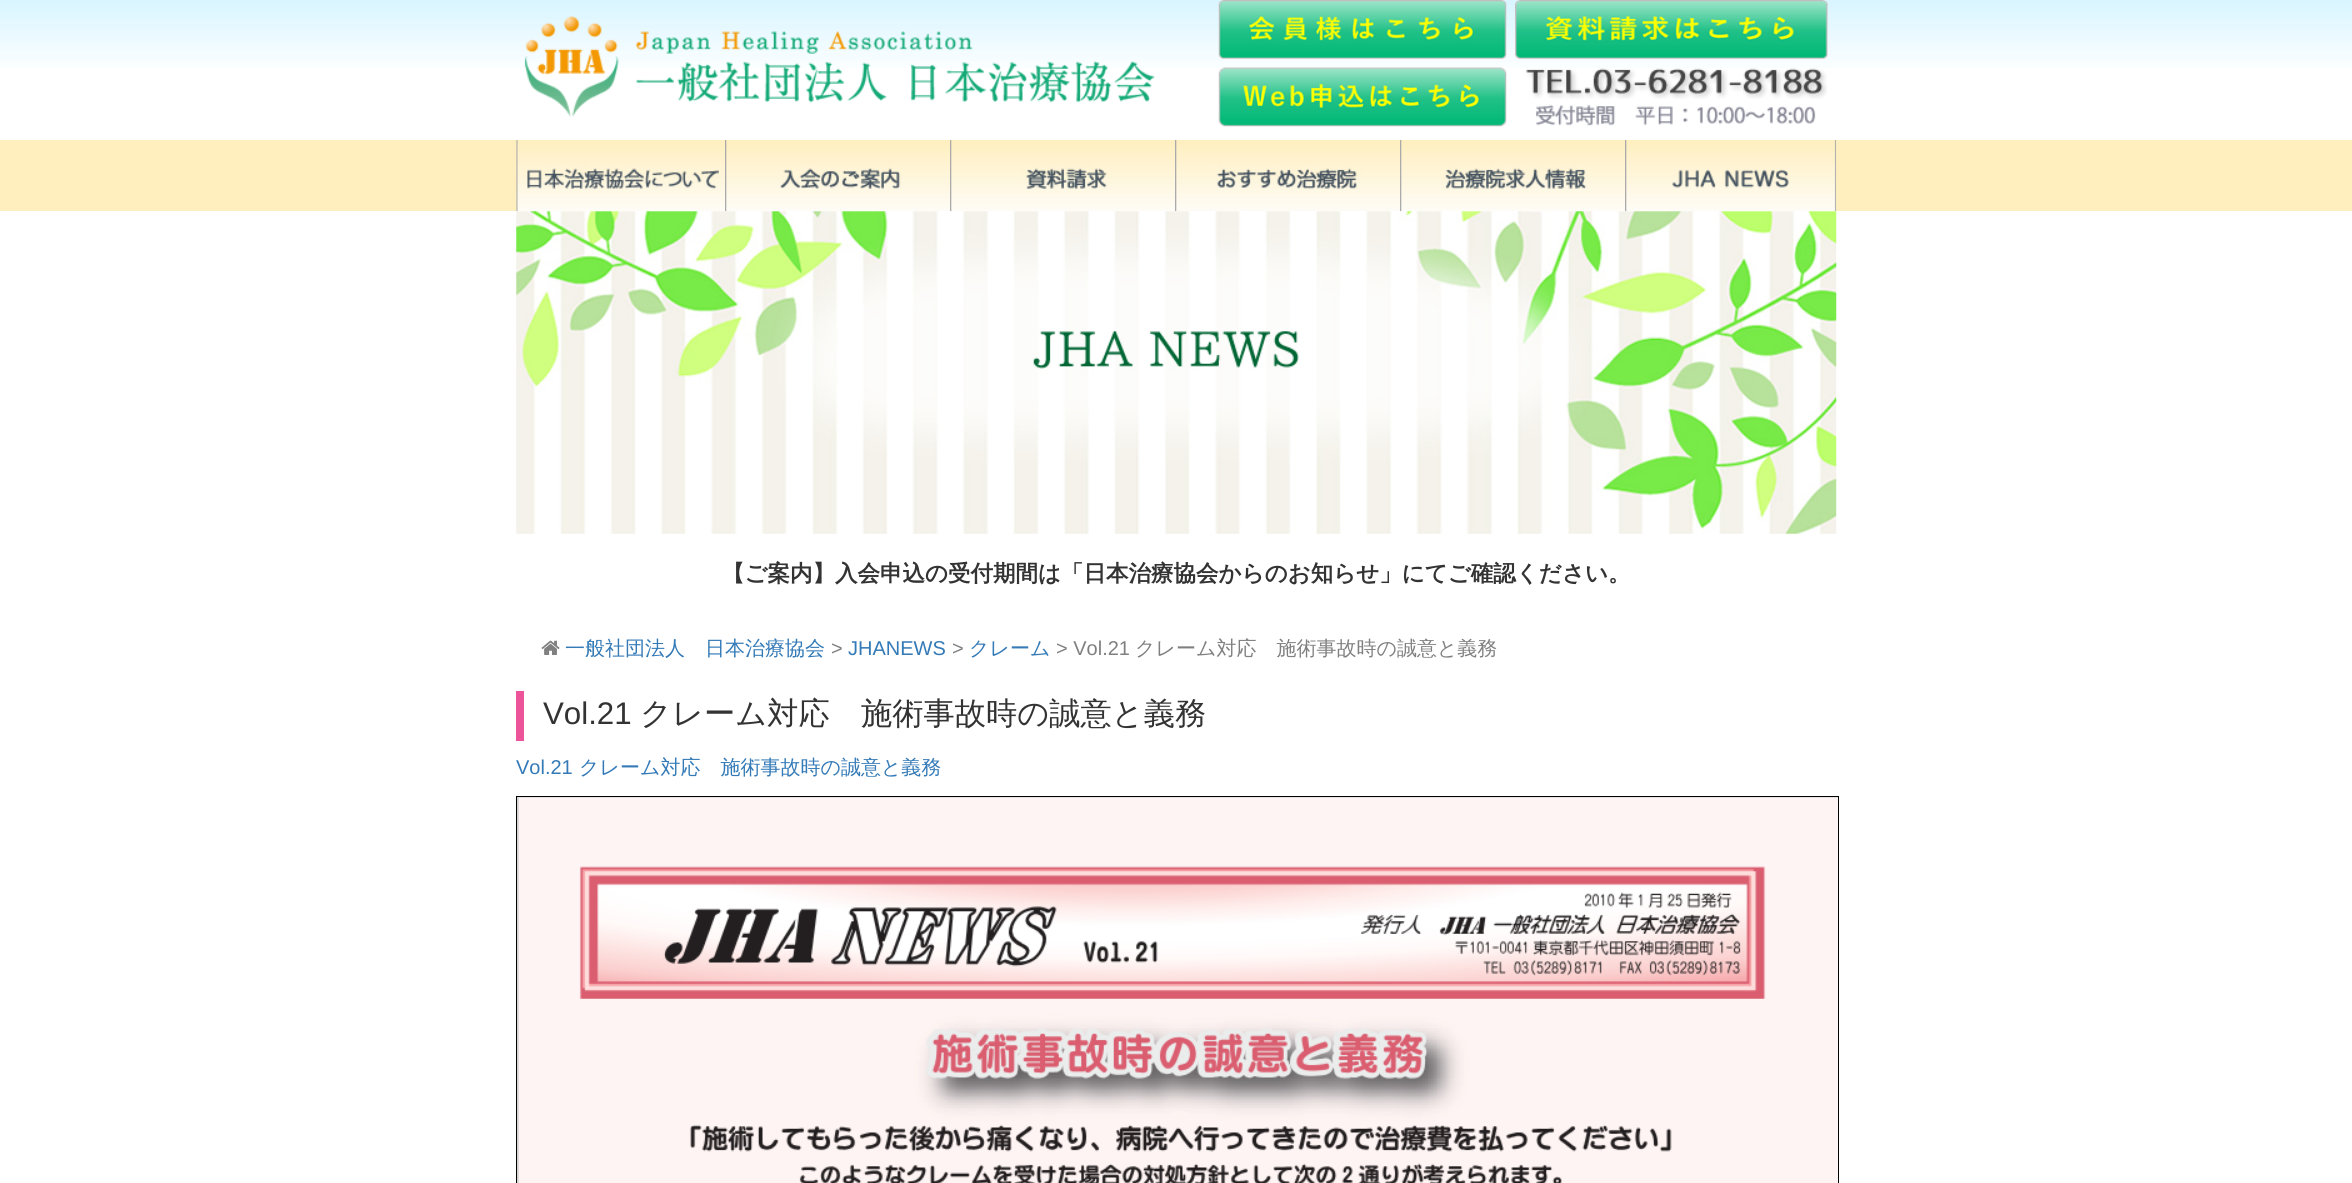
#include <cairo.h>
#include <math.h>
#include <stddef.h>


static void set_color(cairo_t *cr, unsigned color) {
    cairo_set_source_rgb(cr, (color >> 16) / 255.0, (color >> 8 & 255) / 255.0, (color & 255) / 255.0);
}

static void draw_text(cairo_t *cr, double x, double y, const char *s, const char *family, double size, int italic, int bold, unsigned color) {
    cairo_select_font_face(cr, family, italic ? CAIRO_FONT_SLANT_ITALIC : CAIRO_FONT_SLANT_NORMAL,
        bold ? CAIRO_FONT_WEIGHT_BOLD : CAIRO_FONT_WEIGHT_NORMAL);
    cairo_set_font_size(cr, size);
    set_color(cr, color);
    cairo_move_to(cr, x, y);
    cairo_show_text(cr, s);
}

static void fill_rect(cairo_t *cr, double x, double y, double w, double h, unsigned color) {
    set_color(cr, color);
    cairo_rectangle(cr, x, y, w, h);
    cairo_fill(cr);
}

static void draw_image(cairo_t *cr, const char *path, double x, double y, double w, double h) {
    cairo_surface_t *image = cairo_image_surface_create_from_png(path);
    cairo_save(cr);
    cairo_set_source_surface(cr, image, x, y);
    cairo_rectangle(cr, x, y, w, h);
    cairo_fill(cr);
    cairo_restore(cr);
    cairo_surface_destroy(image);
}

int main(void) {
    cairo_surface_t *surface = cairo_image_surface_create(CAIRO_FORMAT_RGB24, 2352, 1183);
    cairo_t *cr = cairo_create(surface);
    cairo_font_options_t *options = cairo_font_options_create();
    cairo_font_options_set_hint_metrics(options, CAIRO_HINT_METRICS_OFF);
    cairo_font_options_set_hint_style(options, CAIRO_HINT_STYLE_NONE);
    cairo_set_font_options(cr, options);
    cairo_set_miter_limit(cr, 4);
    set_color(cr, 0xFFFFFF);
    cairo_paint(cr);
    draw_image(cr, "assets/img1.png", 0, 0, 2352, 68);
    draw_image(cr, "assets/img2.png", 524, 16, 631, 101);
    draw_image(cr, "assets/img3.png", 1218, 0, 289, 59);
    draw_image(cr, "assets/img4.png", 1218, 67, 289, 60);
    draw_image(cr, "assets/img5.png", 1515, 0, 313, 59);
    draw_image(cr, "assets/img6.png", 1526, 68, 301, 58);
    fill_rect(cr, 0, 140, 2352, 71, 0xFFEFBF);
    draw_image(cr, "assets/img13.png", 516, 211, 1321, 323);
    draw_image(cr, "assets/img7.png", 516, 140, 209, 72);
    draw_image(cr, "assets/img8.png", 725, 140, 225, 72);
    draw_image(cr, "assets/img9.png", 950, 140, 225, 72);
    draw_image(cr, "assets/img10.png", 1175, 140, 225, 72);
    draw_image(cr, "assets/img11.png", 1400, 140, 225, 72);
    draw_image(cr, "assets/img12.png", 1625, 140, 212, 72);
    draw_text(cr, 722, 581, "【ご案内】入会申込の受付期間は「日本治療協会からのお知らせ」にてご確認ください。", "WenQuanYi Zen Hei", 22.5, 0, 1, 0x333333);
    draw_image(cr, "assets/img14.png", 541, 640, 19, 15);
    draw_text(cr, 565, 655, "一般社団法人　日本治療協会", "WenQuanYi Zen Hei Medium", 20, 0, 0, 0x337AB7);
    draw_text(cr, 831, 655, ">", "Liberation Sans", 20, 0, 0, 0x808080);
    draw_text(cr, 848, 655, "JHANEWS", "Liberation Sans", 20, 0, 0, 0x337AB7);
    draw_text(cr, 952, 655, ">", "Liberation Sans", 20, 0, 0, 0x808080);
    draw_text(cr, 969, 655, "クレーム", "WenQuanYi Zen Hei Medium", 20, 0, 0, 0x337AB7);
    draw_text(cr, 1056, 655, "> Vol.21", "Liberation Sans", 20, 0, 0, 0x808080);
    draw_text(cr, 1135, 655, "クレーム対応　施術事故時の誠意と義務", "WenQuanYi Zen Hei Medium", 20, 0, 0, 0x808080);
    fill_rect(cr, 516, 691, 8, 50, 0xED5399);
    draw_text(cr, 543, 724, "Vol.21", "Liberation Sans", 31.25, 0, 0, 0x333333);
    draw_text(cr, 640, 724, "クレーム対応　施術事故時の誠意と義務", "WenQuanYi Zen Hei Medium", 31.25, 0, 0, 0x333333);
    draw_text(cr, 516, 774, "Vol.21", "Liberation Sans", 20, 0, 0, 0x337AB7);
    draw_text(cr, 579, 774, "クレーム対応　施術事故時の誠意と義務", "WenQuanYi Zen Hei Medium", 20, 0, 0, 0x337AB7);
    set_color(cr, 0xD3D3D3);
    cairo_rectangle(cr, 516.5, 796.5, 1322, 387);
    cairo_fill_preserve(cr);
    set_color(cr, 0x000000);
    cairo_set_line_width(cr, 1);
    cairo_stroke(cr);
    draw_image(cr, "assets/img15.png", 518, 797, 1320, 386);
    cairo_surface_write_to_png(surface, "output.png");
    cairo_font_options_destroy(options);
    cairo_destroy(cr);
    cairo_surface_destroy(surface);
    return 0;
}
